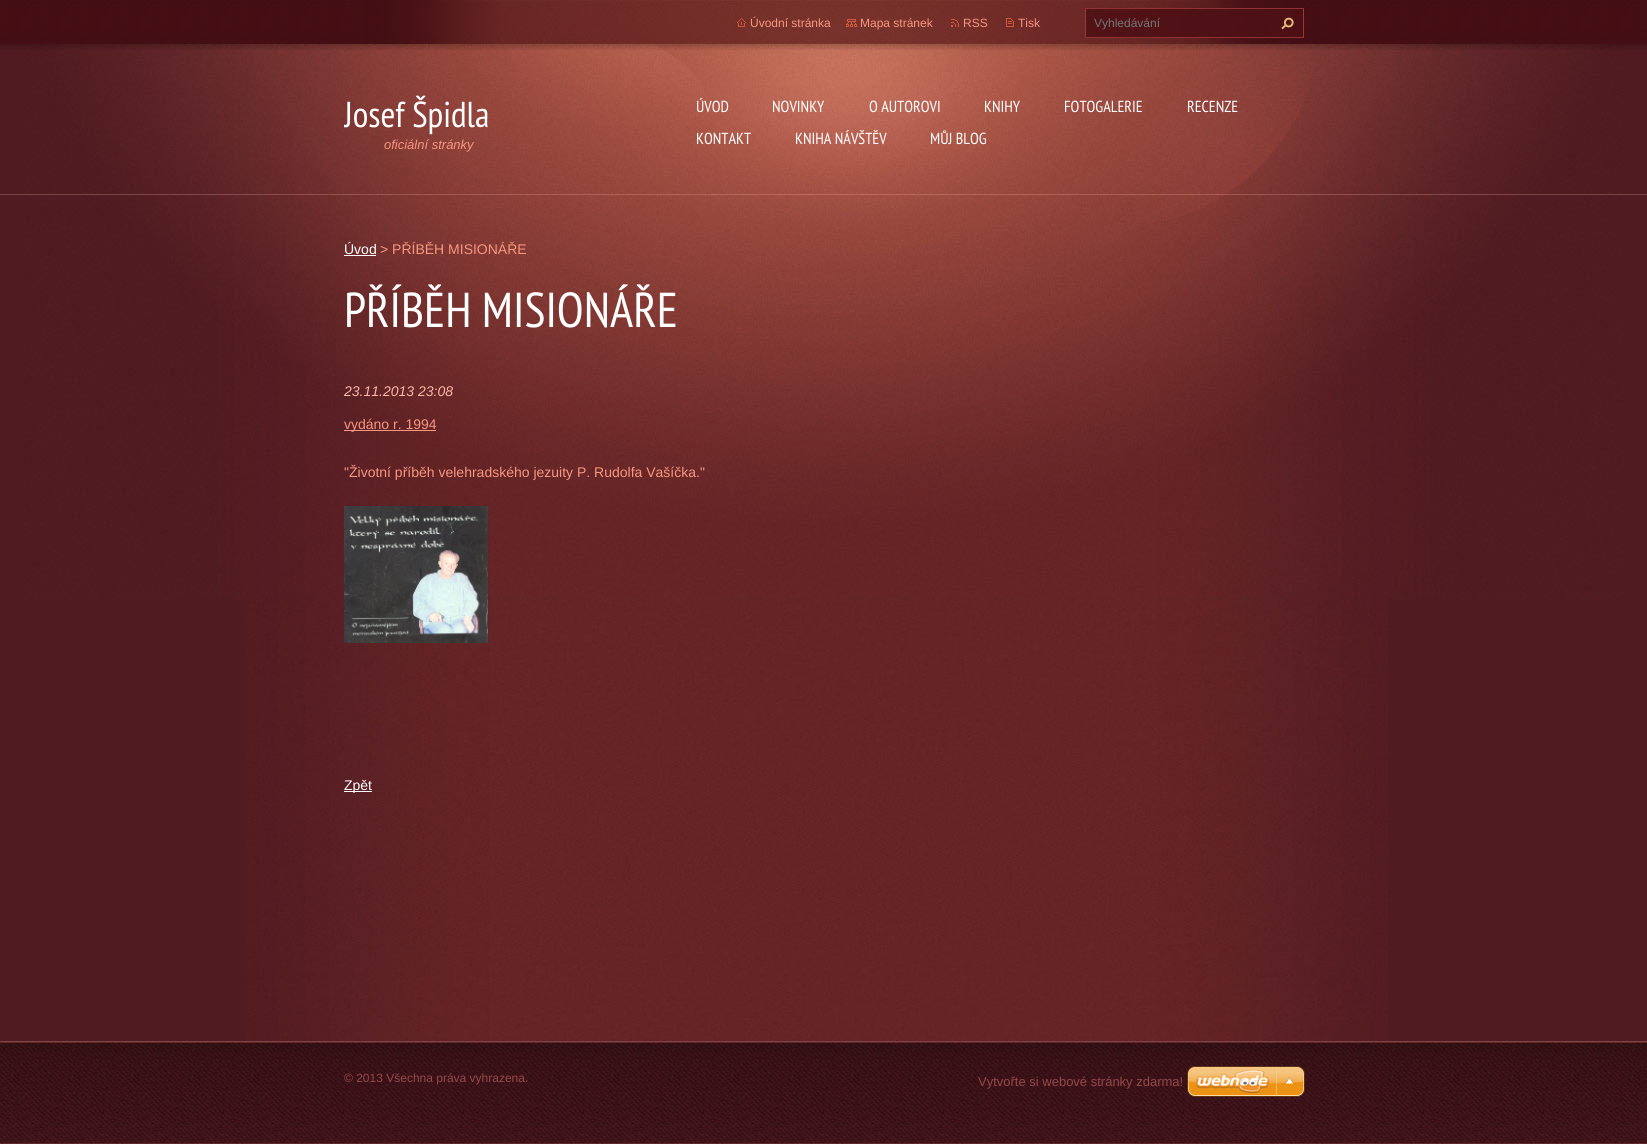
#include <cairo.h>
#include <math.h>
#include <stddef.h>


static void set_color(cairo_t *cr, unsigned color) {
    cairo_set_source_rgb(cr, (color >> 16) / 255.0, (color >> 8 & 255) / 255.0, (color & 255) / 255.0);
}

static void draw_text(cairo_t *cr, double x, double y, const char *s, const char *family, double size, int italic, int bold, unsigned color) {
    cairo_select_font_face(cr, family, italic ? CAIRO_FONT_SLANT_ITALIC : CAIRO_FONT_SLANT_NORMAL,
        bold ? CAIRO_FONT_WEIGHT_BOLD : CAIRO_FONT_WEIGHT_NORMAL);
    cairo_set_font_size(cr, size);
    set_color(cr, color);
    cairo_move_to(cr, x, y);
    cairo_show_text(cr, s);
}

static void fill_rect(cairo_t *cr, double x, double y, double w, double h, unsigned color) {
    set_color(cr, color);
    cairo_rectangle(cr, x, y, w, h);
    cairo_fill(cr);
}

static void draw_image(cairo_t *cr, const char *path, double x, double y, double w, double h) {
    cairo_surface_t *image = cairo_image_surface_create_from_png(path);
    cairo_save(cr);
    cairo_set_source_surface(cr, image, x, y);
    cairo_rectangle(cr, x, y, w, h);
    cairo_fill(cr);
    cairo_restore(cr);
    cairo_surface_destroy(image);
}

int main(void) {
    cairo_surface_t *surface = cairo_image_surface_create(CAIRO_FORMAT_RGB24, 1647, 1144);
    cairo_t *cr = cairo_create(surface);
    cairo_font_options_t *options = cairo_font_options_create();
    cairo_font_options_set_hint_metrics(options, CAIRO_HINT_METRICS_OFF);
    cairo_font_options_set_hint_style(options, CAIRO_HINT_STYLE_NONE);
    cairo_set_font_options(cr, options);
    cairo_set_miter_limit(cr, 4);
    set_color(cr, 0x511B22);
    cairo_paint(cr);
    draw_image(cr, "assets/img1.png", 246, 600, 1142, 441);
    draw_image(cr, "assets/img2.png", 24, 44, 1600, 556);
    cairo_set_source_rgba(cr, 0.984, 0.714, 0.651, 0.26);
    cairo_rectangle(cr, 0, 194, 1647, 1);
    cairo_fill(cr);
    draw_image(cr, "assets/img3.png", 0, 0, 1647, 50);
    draw_image(cr, "assets/img4.png", 351, 0, 937, 44);
    draw_image(cr, "assets/img5.png", 737, 18, 9, 9);
    draw_text(cr, 750, 27, "Úvodní stránka", "Liberation Sans", 12, 0, 0, 0xF9967F);
    draw_image(cr, "assets/img6.png", 846, 19, 11, 8);
    draw_text(cr, 860, 27, "Mapa stránek", "Liberation Sans", 12, 0, 0, 0xF9967F);
    draw_image(cr, "assets/img7.png", 951, 19, 8, 8);
    draw_text(cr, 963, 27, "RSS", "Liberation Sans", 12, 0, 0, 0xF9967F);
    draw_image(cr, "assets/img8.png", 1006, 18, 8, 9);
    draw_text(cr, 1018, 27, "Tisk", "Liberation Sans", 12, 0, 0, 0xF9967F);
    draw_image(cr, "assets/img9.png", 1085, 8, 219, 30);
    draw_text(cr, 1094, 27, "Vyhledávání", "Liberation Sans", 12, 0, 0, 0x757575);
    draw_image(cr, "assets/img10.png", 1281, 17, 13, 13);
    cairo_save(cr);
    cairo_rectangle(cr, 344, 80, 300, 95);
    cairo_clip(cr);
    draw_text(cr, 344, 127, "Josef Špidla", "PT Sans Narrow", 36, 0, 0, 0xFFFFFF);
    cairo_restore(cr);
    draw_text(cr, 384, 149, "oficiální stránky", "Liberation Sans", 13, 1, 0, 0xF9967F);
    draw_text(cr, 696, 112, "ÚVOD", "PT Sans Narrow", 16, 0, 0, 0xFFFFFF);
    draw_text(cr, 772, 112, "NOVINKY", "PT Sans Narrow", 16, 0, 0, 0xFFFFFF);
    draw_text(cr, 869, 112, "O AUTOROVI", "PT Sans Narrow", 16, 0, 0, 0xFFFFFF);
    draw_text(cr, 984, 112, "KNIHY", "PT Sans Narrow", 16, 0, 0, 0xFFFFFF);
    draw_text(cr, 1064, 112, "FOTOGALERIE", "PT Sans Narrow", 16, 0, 0, 0xFFFFFF);
    draw_text(cr, 1187, 112, "RECENZE", "PT Sans Narrow", 16, 0, 0, 0xFFFFFF);
    draw_text(cr, 696, 144, "KONTAKT", "PT Sans Narrow", 16, 0, 0, 0xFFFFFF);
    draw_text(cr, 795, 144, "KNIHA NÁVŠTĚV", "PT Sans Narrow", 16, 0, 0, 0xFFFFFF);
    draw_text(cr, 930, 144, "MŮJ BLOG", "PT Sans Narrow", 16, 0, 0, 0xFFFFFF);
    draw_text(cr, 344, 254, "Úvod", "Liberation Sans", 14, 0, 0, 0xFFFFFF);
    fill_rect(cr, 344, 255, 32, 1, 0xFFFFFF);
    draw_text(cr, 380, 254, "> PŘÍBĚH MISIONÁŘE", "Liberation Sans", 14, 0, 0, 0xF9967F);
    draw_text(cr, 344, 327, "PŘÍBĚH MISIONÁŘE", "PT Sans Narrow", 49, 0, 0, 0xFFFFFF);
    draw_text(cr, 344, 396, "23.11.2013 23:08", "Liberation Sans", 14, 1, 0, 0xFDB7A7);
    fill_rect(cr, 344, 430, 92, 1, 0xFE9A83);
    draw_text(cr, 344, 429, "vydáno r. 1994", "Liberation Sans", 14, 0, 0, 0xF9967F);
    draw_text(cr, 344, 477, "\"Životní příběh velehradského jezuity P. Rudolfa Vašíčka.\"", "Liberation Sans", 14, 0, 0, 0xF9967F);
    draw_image(cr, "assets/img11.png", 344, 506, 144, 137);
    fill_rect(cr, 344, 791, 28, 1, 0xFFFFFF);
    draw_text(cr, 344, 790, "Zpět", "Liberation Sans", 14, 0, 0, 0xFFFFFF);
    draw_image(cr, "assets/img12.png", 0, 1041, 1647, 103);
    cairo_save(cr);
    cairo_rectangle(cr, 344, 1041, 480, 103);
    cairo_clip(cr);
    draw_text(cr, 344, 1082, "© 2013 Všechna práva vyhrazena.", "Liberation Sans", 12, 0, 0, 0x954849);
    cairo_restore(cr);
    draw_text(cr, 978, 1086, "Vytvořte si webové stránky zdarma!", "Liberation Sans", 13, 0, 0, 0x954849);
    draw_image(cr, "assets/img13.png", 1187, 1066, 118, 31);
    cairo_surface_write_to_png(surface, "output.png");
    cairo_font_options_destroy(options);
    cairo_destroy(cr);
    cairo_surface_destroy(surface);
    return 0;
}
